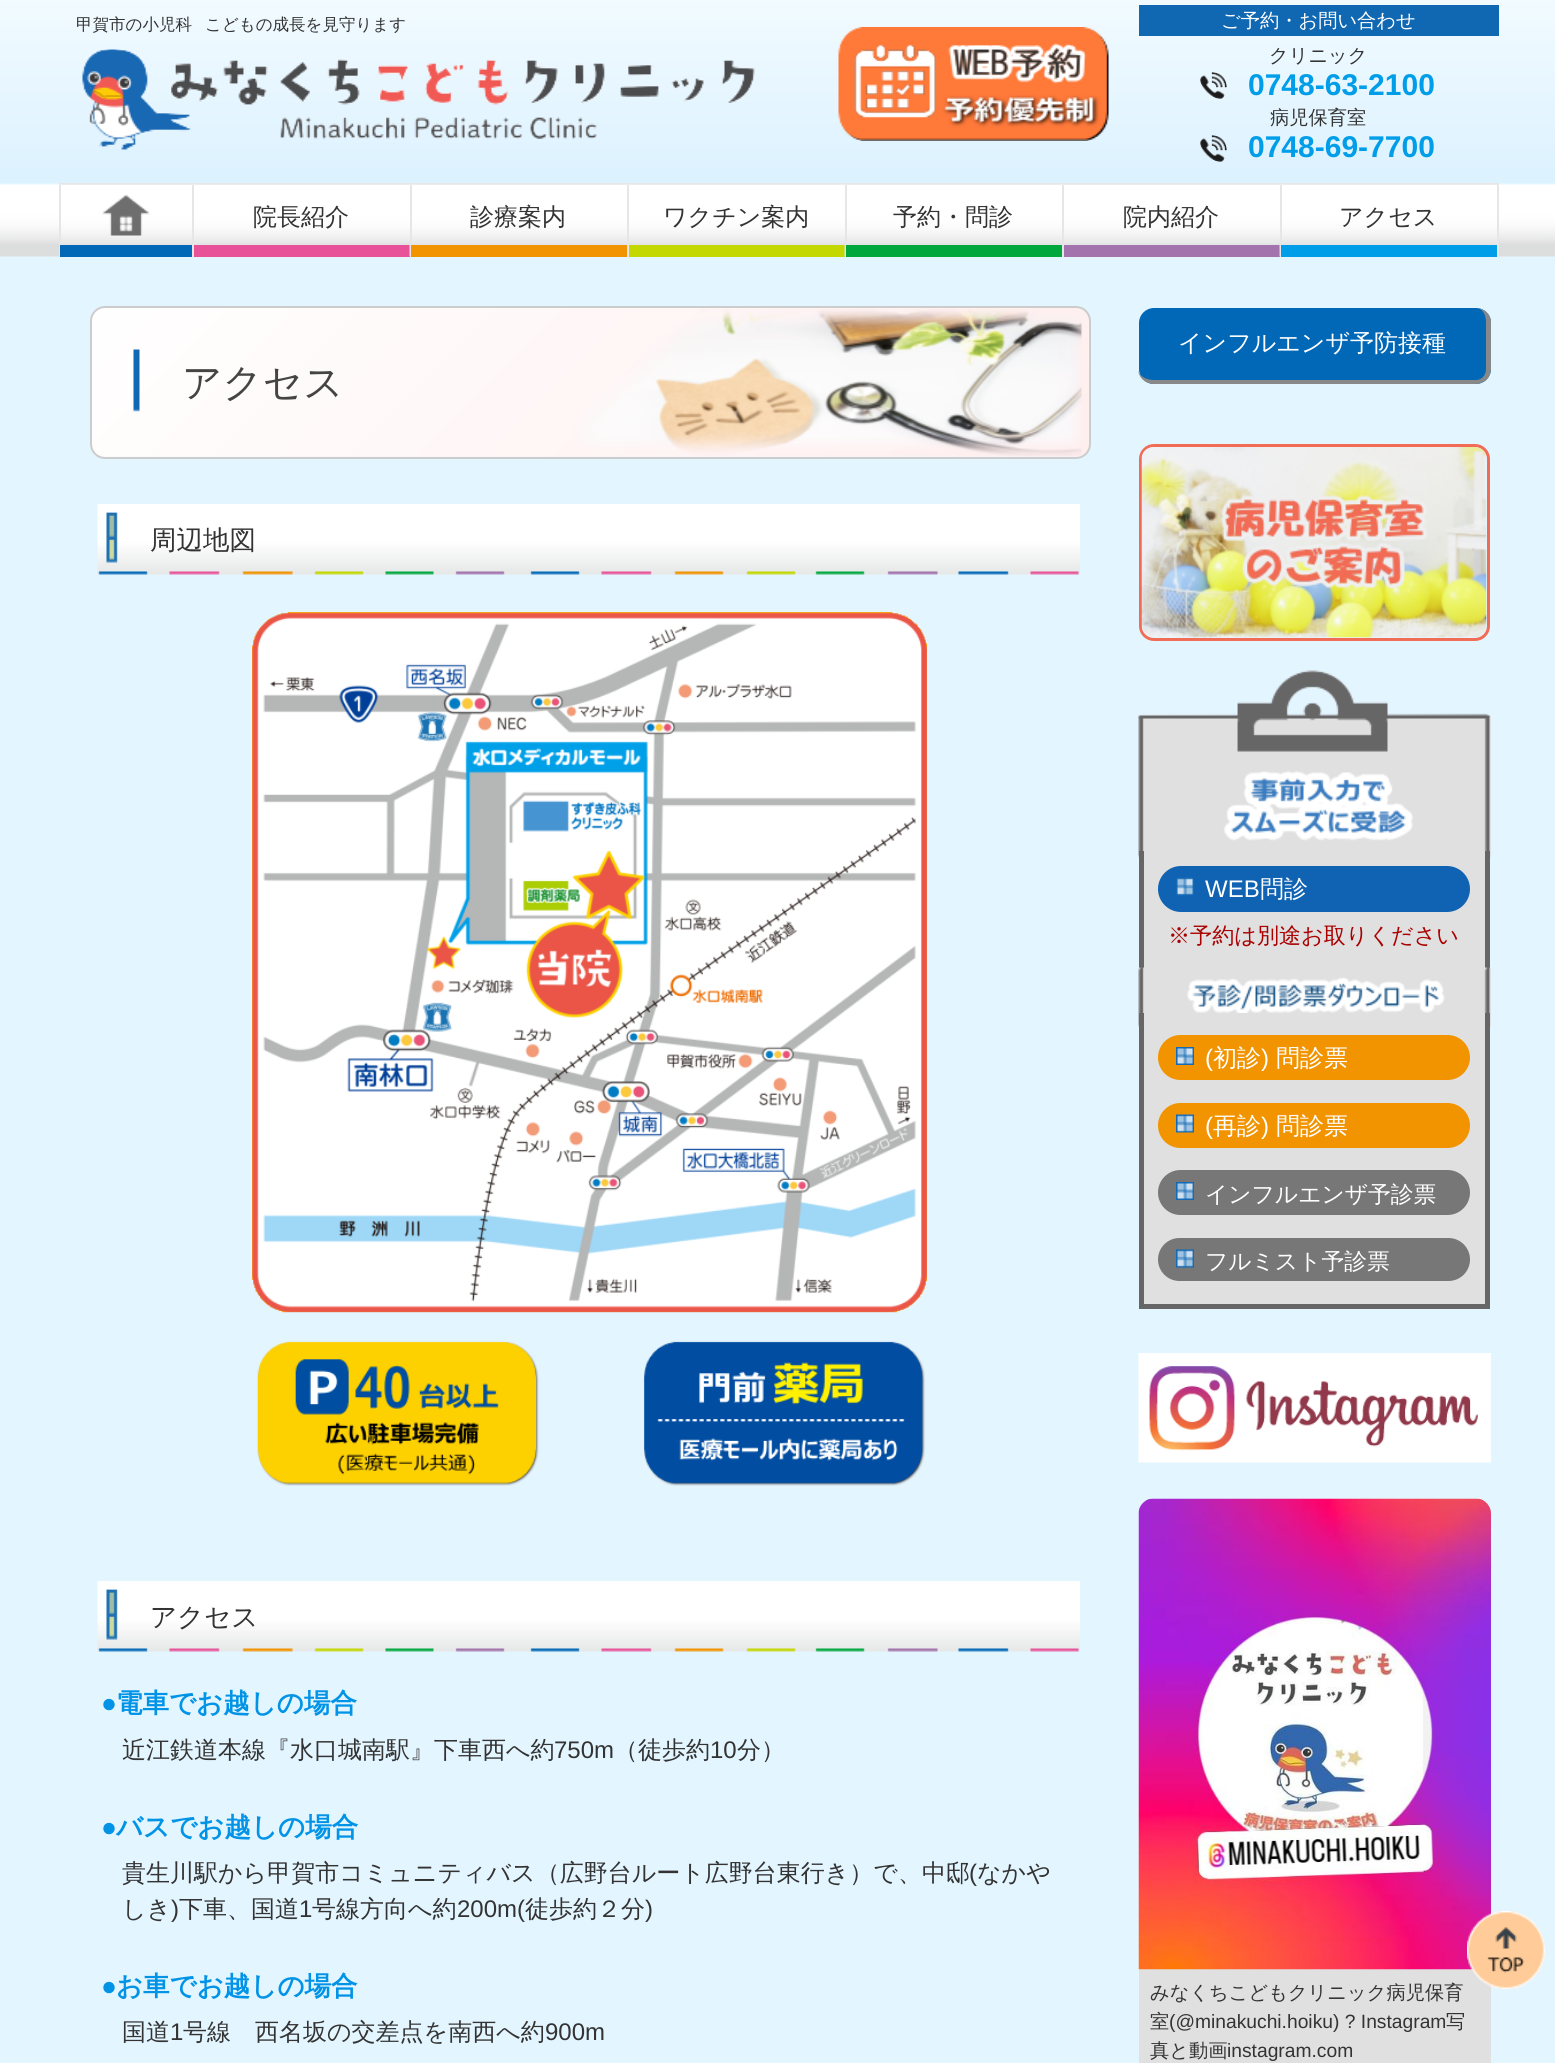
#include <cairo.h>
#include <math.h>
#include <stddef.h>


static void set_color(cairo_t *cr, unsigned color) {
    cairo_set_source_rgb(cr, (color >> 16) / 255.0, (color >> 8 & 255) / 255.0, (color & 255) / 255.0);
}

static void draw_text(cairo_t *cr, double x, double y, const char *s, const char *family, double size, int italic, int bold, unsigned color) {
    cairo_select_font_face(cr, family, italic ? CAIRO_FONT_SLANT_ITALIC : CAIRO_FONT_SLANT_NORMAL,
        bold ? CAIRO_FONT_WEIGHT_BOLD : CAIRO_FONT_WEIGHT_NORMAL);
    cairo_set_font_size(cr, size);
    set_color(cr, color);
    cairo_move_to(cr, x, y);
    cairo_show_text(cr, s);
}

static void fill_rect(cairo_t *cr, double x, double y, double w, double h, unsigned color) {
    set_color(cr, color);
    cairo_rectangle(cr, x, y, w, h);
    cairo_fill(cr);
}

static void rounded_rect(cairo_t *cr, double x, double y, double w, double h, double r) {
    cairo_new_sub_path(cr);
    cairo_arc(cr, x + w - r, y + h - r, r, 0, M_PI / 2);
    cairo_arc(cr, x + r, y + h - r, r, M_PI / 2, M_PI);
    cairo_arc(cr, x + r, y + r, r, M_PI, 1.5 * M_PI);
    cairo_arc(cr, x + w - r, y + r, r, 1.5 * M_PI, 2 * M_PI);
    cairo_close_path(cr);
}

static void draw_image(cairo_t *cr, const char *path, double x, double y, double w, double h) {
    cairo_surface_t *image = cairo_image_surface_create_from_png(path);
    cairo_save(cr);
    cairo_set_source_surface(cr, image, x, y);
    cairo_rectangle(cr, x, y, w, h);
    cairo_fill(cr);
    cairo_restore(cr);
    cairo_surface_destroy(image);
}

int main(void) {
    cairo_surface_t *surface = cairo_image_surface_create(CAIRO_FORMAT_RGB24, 1555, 2063);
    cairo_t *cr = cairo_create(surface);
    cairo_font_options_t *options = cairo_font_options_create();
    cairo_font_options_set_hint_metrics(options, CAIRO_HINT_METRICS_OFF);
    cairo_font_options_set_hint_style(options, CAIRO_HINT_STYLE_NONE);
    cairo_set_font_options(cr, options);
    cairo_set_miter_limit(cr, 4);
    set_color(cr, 0xE3F5FF);
    cairo_paint(cr);
    draw_image(cr, "assets/img1.png", 0, 0, 1555, 257);
    draw_text(cr, 76, 30, "甲賀市の小児科", "WenQuanYi Zen Hei Medium", 16.5, 0, 0, 0x333333);
    draw_text(cr, 205, 30, "こどもの成長を見守ります", "WenQuanYi Zen Hei Medium", 16.5, 0, 0, 0x333333);
    fill_rect(cr, 1139, 5, 360, 31, 0x1068B3);
    draw_text(cr, 1221, 27, "ご予約・お問い合わせ", "WenQuanYi Zen Hei Medium", 19.25, 0, 0, 0xFFFFFF);
    draw_text(cr, 1269, 62, "クリニック", "WenQuanYi Zen Hei Medium", 19.25, 0, 0, 0x333333);
    draw_image(cr, "assets/img2.png", 1200, 72, 27, 27);
    draw_text(cr, 1248, 95, "0748-63-2100", "Liberation Sans", 30, 0, 1, 0x009DE8);
    draw_text(cr, 1270, 124, "病児保育室", "WenQuanYi Zen Hei Medium", 19.25, 0, 0, 0x333333);
    draw_image(cr, "assets/img3.png", 1200, 135, 27, 27);
    draw_text(cr, 1248, 157, "0748-69-7700", "Liberation Sans", 30, 0, 1, 0x009DE8);
    draw_image(cr, "assets/img4.png", 82, 49, 673, 101);
    draw_image(cr, "assets/img5.png", 838, 27, 271, 114);
    fill_rect(cr, 59, 183, 1440, 2, 0xE6E6E7);
    fill_rect(cr, 1497, 183, 2, 74, 0xE6E6E7);
    draw_image(cr, "assets/img6.png", 59, 184, 133, 61);
    fill_rect(cr, 59, 185, 2, 72, 0xE6E6E7);
    draw_image(cr, "assets/img7.png", 102, 195, 48, 41);
    fill_rect(cr, 60, 245, 132, 12, 0x0068B7);
    draw_image(cr, "assets/img8.png", 192, 184, 218, 61);
    fill_rect(cr, 192, 185, 2, 72, 0xE6E6E7);
    fill_rect(cr, 194, 245, 216, 12, 0xE85298);
    draw_text(cr, 253, 225, "院長紹介", "WenQuanYi Zen Hei Medium", 24, 0, 0, 0x333333);
    draw_image(cr, "assets/img9.png", 409, 184, 218, 73);
    fill_rect(cr, 410, 185, 2, 72, 0xE6E6E7);
    fill_rect(cr, 411, 245, 216, 12, 0xF29300);
    draw_text(cr, 470, 225, "診療案内", "WenQuanYi Zen Hei Medium", 24, 0, 0, 0x333333);
    draw_image(cr, "assets/img10.png", 627, 184, 218, 61);
    fill_rect(cr, 627, 185, 2, 72, 0xE6E6E7);
    fill_rect(cr, 629, 245, 216, 12, 0xC3D700);
    draw_text(cr, 663, 225, "ワクチン案内", "WenQuanYi Zen Hei Medium", 24, 0, 0, 0x333333);
    draw_image(cr, "assets/img11.png", 844, 184, 218, 73);
    fill_rect(cr, 845, 185, 2, 72, 0xE6E6E7);
    fill_rect(cr, 846, 245, 216, 12, 0x00A73C);
    draw_text(cr, 893, 225, "予約・問診", "WenQuanYi Zen Hei Medium", 24, 0, 0, 0x333333);
    draw_image(cr, "assets/img12.png", 1062, 184, 218, 61);
    fill_rect(cr, 1062, 185, 2, 72, 0xE6E6E7);
    fill_rect(cr, 1064, 245, 216, 12, 0xA273AD);
    draw_text(cr, 1123, 225, "院内紹介", "WenQuanYi Zen Hei Medium", 24, 0, 0, 0x333333);
    draw_image(cr, "assets/img13.png", 1279, 184, 218, 73);
    fill_rect(cr, 1280, 185, 2, 72, 0xE6E6E7);
    fill_rect(cr, 1281, 245, 216, 12, 0x009DE8);
    draw_text(cr, 1339, 225, "アクセス", "WenQuanYi Zen Hei Medium", 24, 0, 0, 0x333333);
    draw_image(cr, "assets/img14.png", 90, 307, 1001, 151);
    rounded_rect(cr, 91, 307, 999, 151, 14);
    set_color(cr, 0xCCCCCC);
    cairo_stroke(cr);
    draw_text(cr, 182, 396, "アクセス", "WenQuanYi Zen Hei Medium", 39.5, 0, 0, 0x444444);
    draw_image(cr, "assets/img15.png", 97, 504, 983, 71);
    draw_text(cr, 150, 549, "周辺地図", "WenQuanYi Zen Hei Medium", 26.5, 0, 0, 0x333333);
    draw_image(cr, "assets/img16.png", 252, 612, 675, 874);
    draw_image(cr, "assets/img15.png", 97, 1581, 983, 71);
    draw_text(cr, 150, 1626, "アクセス", "WenQuanYi Zen Hei Medium", 26.5, 0, 0, 0x333333);
    draw_text(cr, 101, 1712, "●", "Liberation Sans", 26.5, 0, 1, 0x0093E6);
    draw_text(cr, 116, 1712, "電車でお越しの場合", "WenQuanYi Zen Hei", 26.5, 0, 1, 0x0093E6);
    draw_text(cr, 122, 1758, "近江鉄道本線『水口城南駅』下車西へ約", "WenQuanYi Zen Hei Medium", 24, 0, 0, 0x333333);
    draw_text(cr, 554, 1758, "750m", "Liberation Sans", 24, 0, 0, 0x333333);
    draw_text(cr, 614, 1758, "（徒歩約", "WenQuanYi Zen Hei Medium", 24, 0, 0, 0x333333);
    draw_text(cr, 710, 1758, "10", "Liberation Sans", 24, 0, 0, 0x333333);
    draw_text(cr, 737, 1758, "分）", "WenQuanYi Zen Hei Medium", 24, 0, 0, 0x333333);
    draw_text(cr, 101, 1836, "●", "Liberation Sans", 26.5, 0, 1, 0x0093E6);
    draw_text(cr, 116, 1836, "バスでお越しの場合", "WenQuanYi Zen Hei", 26.5, 0, 1, 0x0093E6);
    draw_text(cr, 122, 1881, "貴生川駅から甲賀市コミュニティバス（広野台ルート広野台東行き）で、中邸", "WenQuanYi Zen Hei Medium", 24, 0, 0, 0x333333);
    draw_text(cr, 969, 1881, "(", "Liberation Sans", 24, 0, 0, 0x333333);
    draw_text(cr, 977, 1881, "なかや", "WenQuanYi Zen Hei Medium", 24, 0, 0, 0x333333);
    draw_text(cr, 122, 1917, "しき", "WenQuanYi Zen Hei Medium", 24, 0, 0, 0x333333);
    draw_text(cr, 171, 1917, ")", "Liberation Sans", 24, 0, 0, 0x333333);
    draw_text(cr, 179, 1917, "下車、国道", "WenQuanYi Zen Hei Medium", 24, 0, 0, 0x333333);
    draw_text(cr, 299, 1917, "1", "Liberation Sans", 24, 0, 0, 0x333333);
    draw_text(cr, 312, 1917, "号線方向へ約", "WenQuanYi Zen Hei Medium", 24, 0, 0, 0x333333);
    draw_text(cr, 457, 1917, "200m(", "Liberation Sans", 24, 0, 0, 0x333333);
    draw_text(cr, 525, 1917, "徒歩約２分", "WenQuanYi Zen Hei Medium", 24, 0, 0, 0x333333);
    draw_text(cr, 645, 1917, ")", "Liberation Sans", 24, 0, 0, 0x333333);
    draw_text(cr, 101, 1995, "●", "Liberation Sans", 26.5, 0, 1, 0x0093E6);
    draw_text(cr, 116, 1995, "お車でお越しの場合", "WenQuanYi Zen Hei", 26.5, 0, 1, 0x0093E6);
    draw_text(cr, 122, 2040, "国道", "WenQuanYi Zen Hei Medium", 24, 0, 0, 0x333333);
    draw_text(cr, 170, 2040, "1", "Liberation Sans", 24, 0, 0, 0x333333);
    draw_text(cr, 183, 2040, "号線　西名坂の交差点を南西へ約", "WenQuanYi Zen Hei Medium", 24, 0, 0, 0x333333);
    draw_text(cr, 545, 2040, "900m", "Liberation Sans", 24, 0, 0, 0x333333);
    set_color(cr, 0x0068B7);
    rounded_rect(cr, 1139, 308, 352, 76, 15);
    cairo_fill(cr);
    set_color(cr, 0x888888);
    cairo_set_fill_rule(cr, CAIRO_FILL_RULE_EVEN_ODD);
    cairo_new_path(cr);
    cairo_move_to(cr, 1154, 308);
    cairo_line_to(cr, 1476, 308);
    cairo_curve_to(cr, 1484, 308, 1491, 314, 1491, 322);
    cairo_line_to(cr, 1491, 369);
    cairo_curve_to(cr, 1491, 377, 1484, 384, 1476, 384);
    cairo_line_to(cr, 1154, 384);
    cairo_curve_to(cr, 1145, 384, 1138, 377, 1138, 369);
    cairo_line_to(cr, 1138, 322);
    cairo_curve_to(cr, 1138, 314, 1145, 308, 1154, 308);
    cairo_close_path(cr);
    cairo_move_to(cr, 1154, 308);
    cairo_line_to(cr, 1476, 308);
    cairo_curve_to(cr, 1482, 308, 1486, 314, 1486, 322);
    cairo_line_to(cr, 1486, 369);
    cairo_curve_to(cr, 1486, 375, 1482, 380, 1476, 380);
    cairo_line_to(cr, 1154, 380);
    cairo_curve_to(cr, 1145, 380, 1138, 375, 1138, 369);
    cairo_line_to(cr, 1138, 322);
    cairo_curve_to(cr, 1138, 314, 1145, 308, 1154, 308);
    cairo_close_path(cr);
    cairo_fill(cr);
    draw_text(cr, 1178, 351, "インフルエンザ予防接種", "WenQuanYi Zen Hei Medium", 24, 0, 0, 0xFFFFFF);
    rounded_rect(cr, 1140.5, 445.5, 348, 194, 13.5);
    set_color(cr, 0xF26B54);
    cairo_set_line_width(cr, 3);
    cairo_stroke(cr);
    draw_image(cr, "assets/img17.png", 1141, 447, 346, 191);
    draw_image(cr, "assets/img18.png", 1138, 670, 353, 188);
    fill_rect(cr, 1144, 851, 341, 117, 0xE0E0E0);
    fill_rect(cr, 1485, 851, 5, 117, 0x666666);
    fill_rect(cr, 1139, 851, 5, 117, 0x666666);
    set_color(cr, 0x1063B3);
    rounded_rect(cr, 1158, 866, 312, 46, 23);
    cairo_fill(cr);
    draw_image(cr, "assets/img19.png", 1176, 877, 18, 19);
    draw_text(cr, 1205, 897, "WEB", "Liberation Sans", 24, 0, 0, 0xFFFFFF);
    draw_text(cr, 1260, 897, "問診", "WenQuanYi Zen Hei Medium", 24, 0, 0, 0xFFFFFF);
    draw_text(cr, 1168, 943, "※予約は別途お取りください", "WenQuanYi Zen Hei Medium", 22.1, 0, 0, 0xAA0000);
    draw_image(cr, "assets/img20.png", 1138, 967, 353, 61);
    fill_rect(cr, 1144, 1013, 341, 291, 0xE0E0E0);
    fill_rect(cr, 1485, 1013, 5, 295, 0x666666);
    fill_rect(cr, 1139, 1304, 351, 5, 0x666666);
    fill_rect(cr, 1139, 1013, 5, 295, 0x666666);
    set_color(cr, 0xF29300);
    rounded_rect(cr, 1158, 1035, 312, 45, 22.5);
    cairo_fill(cr);
    draw_image(cr, "assets/img21.png", 1176, 1047, 18, 18);
    draw_text(cr, 1205, 1066, "(", "Liberation Sans", 24, 0, 0, 0xFFFFFF);
    draw_text(cr, 1213, 1066, "初診", "WenQuanYi Zen Hei Medium", 24, 0, 0, 0xFFFFFF);
    draw_text(cr, 1261, 1066, ")", "Liberation Sans", 24, 0, 0, 0xFFFFFF);
    draw_text(cr, 1276, 1066, "問診票", "WenQuanYi Zen Hei Medium", 24, 0, 0, 0xFFFFFF);
    set_color(cr, 0xF29300);
    rounded_rect(cr, 1158, 1103, 312, 45, 22.5);
    cairo_fill(cr);
    draw_image(cr, "assets/img22.png", 1176, 1114, 18, 19);
    draw_text(cr, 1205, 1134, "(", "Liberation Sans", 24, 0, 0, 0xFFFFFF);
    draw_text(cr, 1213, 1134, "再診", "WenQuanYi Zen Hei Medium", 24, 0, 0, 0xFFFFFF);
    draw_text(cr, 1261, 1134, ")", "Liberation Sans", 24, 0, 0, 0xFFFFFF);
    draw_text(cr, 1276, 1134, "問診票", "WenQuanYi Zen Hei Medium", 24, 0, 0, 0xFFFFFF);
    set_color(cr, 0x777777);
    rounded_rect(cr, 1158, 1170, 312, 45, 22.5);
    cairo_fill(cr);
    draw_image(cr, "assets/img21.png", 1176, 1182, 18, 18);
    draw_text(cr, 1205, 1202, "インフルエンザ予診票", "WenQuanYi Zen Hei Medium", 22.75, 0, 0, 0xFFFFFF);
    set_color(cr, 0x777777);
    rounded_rect(cr, 1158, 1238, 312, 43, 21.5);
    cairo_fill(cr);
    draw_image(cr, "assets/img23.png", 1176, 1249, 18, 19);
    draw_text(cr, 1205, 1269, "フルミスト予診票", "WenQuanYi Zen Hei Medium", 22.75, 0, 0, 0xFFFFFF);
    draw_image(cr, "assets/img24.png", 1138, 1353, 353, 110);
    fill_rect(cr, 1139, 1969, 352, 94, 0xE0E0E0);
    draw_image(cr, "assets/img25.png", 1138, 1498, 353, 472);
    draw_text(cr, 1150, 1999, "みなくちこどもクリニック病児保育", "WenQuanYi Zen Hei Medium", 19.25, 0, 0, 0x333333);
    draw_text(cr, 1150, 2028, "室", "WenQuanYi Zen Hei Medium", 19.25, 0, 0, 0x333333);
    draw_text(cr, 1169, 2028, "(@minakuchi.hoiku) ? Instagram", "Liberation Sans", 19.25, 0, 0, 0x333333);
    draw_text(cr, 1446, 2028, "写", "WenQuanYi Zen Hei Medium", 19.25, 0, 0, 0x333333);
    draw_text(cr, 1150, 2057, "真と動画", "WenQuanYi Zen Hei Medium", 19.25, 0, 0, 0x333333);
    draw_text(cr, 1227, 2057, "instagram.com", "Liberation Sans", 19.25, 0, 0, 0x333333);
    draw_image(cr, "assets/img26.png", 1467, 1911, 78, 78);
    cairo_surface_write_to_png(surface, "output.png");
    cairo_font_options_destroy(options);
    cairo_destroy(cr);
    cairo_surface_destroy(surface);
    return 0;
}
